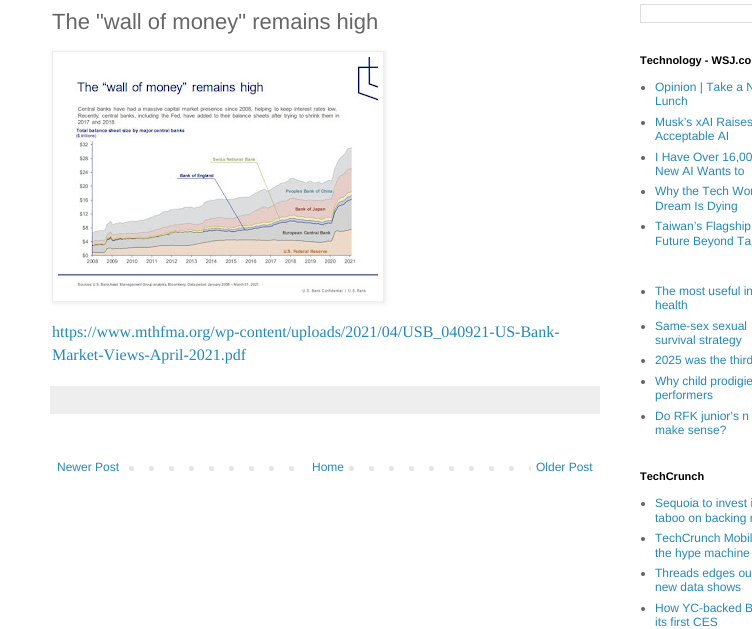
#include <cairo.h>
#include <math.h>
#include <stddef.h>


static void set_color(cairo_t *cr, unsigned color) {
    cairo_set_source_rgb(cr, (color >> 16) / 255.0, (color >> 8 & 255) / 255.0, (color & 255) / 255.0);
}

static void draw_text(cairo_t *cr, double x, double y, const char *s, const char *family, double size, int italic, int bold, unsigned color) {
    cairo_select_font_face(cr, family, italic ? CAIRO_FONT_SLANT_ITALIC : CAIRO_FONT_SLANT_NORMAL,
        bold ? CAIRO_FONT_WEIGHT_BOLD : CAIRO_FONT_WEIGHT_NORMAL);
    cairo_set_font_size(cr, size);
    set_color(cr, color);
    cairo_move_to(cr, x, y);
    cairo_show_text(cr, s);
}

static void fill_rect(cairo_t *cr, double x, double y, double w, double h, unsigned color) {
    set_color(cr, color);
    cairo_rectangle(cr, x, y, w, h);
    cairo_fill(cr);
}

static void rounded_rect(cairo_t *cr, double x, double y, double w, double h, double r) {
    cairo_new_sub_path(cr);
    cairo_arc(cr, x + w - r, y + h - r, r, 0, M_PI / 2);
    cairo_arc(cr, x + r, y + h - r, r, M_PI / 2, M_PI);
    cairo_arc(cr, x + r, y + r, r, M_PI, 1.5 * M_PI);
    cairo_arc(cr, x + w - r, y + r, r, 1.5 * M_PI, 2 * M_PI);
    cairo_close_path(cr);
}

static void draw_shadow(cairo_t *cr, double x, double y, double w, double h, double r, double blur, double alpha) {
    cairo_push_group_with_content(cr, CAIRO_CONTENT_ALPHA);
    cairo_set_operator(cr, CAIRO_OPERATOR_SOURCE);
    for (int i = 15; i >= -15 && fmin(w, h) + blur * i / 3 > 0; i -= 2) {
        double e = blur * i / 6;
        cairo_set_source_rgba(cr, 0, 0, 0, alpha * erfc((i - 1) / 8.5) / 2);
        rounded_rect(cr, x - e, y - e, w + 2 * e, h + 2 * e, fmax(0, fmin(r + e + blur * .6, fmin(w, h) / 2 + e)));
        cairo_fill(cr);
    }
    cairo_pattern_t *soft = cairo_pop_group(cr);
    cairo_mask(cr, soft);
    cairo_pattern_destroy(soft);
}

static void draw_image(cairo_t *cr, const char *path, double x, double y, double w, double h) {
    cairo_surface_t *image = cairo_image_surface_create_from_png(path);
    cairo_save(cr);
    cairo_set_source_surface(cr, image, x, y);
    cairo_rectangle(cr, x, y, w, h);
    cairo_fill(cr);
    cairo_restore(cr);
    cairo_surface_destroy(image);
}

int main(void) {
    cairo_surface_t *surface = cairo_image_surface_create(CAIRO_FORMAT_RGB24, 752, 629);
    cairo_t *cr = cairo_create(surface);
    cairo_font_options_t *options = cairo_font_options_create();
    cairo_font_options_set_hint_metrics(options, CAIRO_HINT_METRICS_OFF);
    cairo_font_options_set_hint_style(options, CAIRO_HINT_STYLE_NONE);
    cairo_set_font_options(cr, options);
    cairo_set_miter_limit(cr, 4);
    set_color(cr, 0xFFFFFF);
    cairo_paint(cr);
    draw_text(cr, 52, 29, "The \"wall of money\" remains high", "Liberation Sans", 22, 0, 0, 0x666666);
    cairo_save(cr);
    cairo_set_fill_rule(cr, CAIRO_FILL_RULE_EVEN_ODD);
    cairo_new_path(cr);
    cairo_move_to(cr, 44, 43);
    cairo_line_to(cr, 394, 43);
    cairo_line_to(cr, 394, 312);
    cairo_line_to(cr, 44, 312);
    cairo_close_path(cr);
    cairo_move_to(cr, 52, 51);
    cairo_line_to(cr, 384, 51);
    cairo_line_to(cr, 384, 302);
    cairo_line_to(cr, 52, 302);
    cairo_close_path(cr);
    cairo_clip(cr);
    set_color(cr, 0x000000);
    draw_shadow(cr, 53, 52, 332, 251, 0, 2.5, 0.1);
    cairo_restore(cr);
    cairo_rectangle(cr, 52.5, 51.5, 331, 250);
    set_color(cr, 0xEEEEEE);
    cairo_set_line_width(cr, 1);
    cairo_stroke(cr);
    draw_image(cr, "assets/img1.png", 58, 57, 320, 239);
    draw_text(cr, 52, 337, "https://www.mthfma.org/wp-content/uploads/2021/04/USB_040921-US-Bank-", "Liberation Serif", 16, 0, 0, 0x2288BB);
    draw_text(cr, 52, 360, "Market-Views-April-2021.pdf", "Liberation Serif", 16, 0, 0, 0x2288BB);
    fill_rect(cr, 50, 386, 550, 28, 0xEEEEEE);
    draw_image(cr, "assets/img2.png", 129, 466, 402, 5);
    draw_text(cr, 57, 471, "Newer Post", "Liberation Sans", 12, 0, 0, 0x2288BB);
    fill_rect(cr, 309, 466, 26, 5, 0xFFFFFF);
    draw_text(cr, 312, 471, "Home", "Liberation Sans", 12, 0, 0, 0x2288BB);
    draw_text(cr, 536, 471, "Older Post", "Liberation Sans", 12, 0, 0, 0x2288BB);
    cairo_rectangle(cr, 640.5, 4.5, 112, 18);
    set_color(cr, 0xDDDDDD);
    cairo_stroke(cr);
    draw_text(cr, 640, 64, "Technology - WSJ.co", "Liberation Sans", 11, 0, 1, 0x000000);
    set_color(cr, 0x666666);
    cairo_new_path(cr);
    cairo_arc(cr, 643, 88, 2, 0, 2 * M_PI);
    cairo_fill(cr);
    draw_text(cr, 655, 91, "Opinion | Take a N", "Liberation Sans", 12, 0, 0, 0x2288BB);
    draw_text(cr, 655, 105, "Lunch", "Liberation Sans", 12, 0, 0, 0x2288BB);
    set_color(cr, 0x666666);
    cairo_new_path(cr);
    cairo_arc(cr, 643, 123, 2, 0, 2 * M_PI);
    cairo_fill(cr);
    draw_text(cr, 655, 126, "Musk’s xAI Raises", "Liberation Sans", 12, 0, 0, 0x2288BB);
    draw_text(cr, 655, 140, "Acceptable AI", "Liberation Sans", 12, 0, 0, 0x2288BB);
    set_color(cr, 0x666666);
    cairo_new_path(cr);
    cairo_arc(cr, 643, 158, 2, 0, 2 * M_PI);
    cairo_fill(cr);
    draw_text(cr, 655, 161, "I Have Over 16,00", "Liberation Sans", 12, 0, 0, 0x2288BB);
    draw_text(cr, 655, 175, "New AI Wants to", "Liberation Sans", 12, 0, 0, 0x2288BB);
    set_color(cr, 0x666666);
    cairo_new_path(cr);
    cairo_arc(cr, 643, 192, 2, 0, 2 * M_PI);
    cairo_fill(cr);
    draw_text(cr, 655, 195, "Why the Tech Wor", "Liberation Sans", 12, 0, 0, 0x2288BB);
    draw_text(cr, 655, 210, "Dream Is Dying", "Liberation Sans", 12, 0, 0, 0x2288BB);
    set_color(cr, 0x666666);
    cairo_new_path(cr);
    cairo_arc(cr, 643, 227, 2, 0, 2 * M_PI);
    cairo_fill(cr);
    draw_text(cr, 655, 230, "Taiwan’s Flagship", "Liberation Sans", 12, 0, 0, 0x2288BB);
    draw_text(cr, 655, 245, "Future Beyond Ta", "Liberation Sans", 12, 0, 0, 0x2288BB);
    set_color(cr, 0x666666);
    cairo_new_path(cr);
    cairo_arc(cr, 643, 292, 2, 0, 2 * M_PI);
    cairo_fill(cr);
    draw_text(cr, 655, 295, "The most useful in", "Liberation Sans", 12, 0, 0, 0x2288BB);
    draw_text(cr, 655, 309, "health", "Liberation Sans", 12, 0, 0, 0x2288BB);
    set_color(cr, 0x666666);
    cairo_new_path(cr);
    cairo_arc(cr, 643, 327, 2, 0, 2 * M_PI);
    cairo_fill(cr);
    draw_text(cr, 655, 330, "Same-sex sexual", "Liberation Sans", 12, 0, 0, 0x2288BB);
    draw_text(cr, 655, 344, "survival strategy", "Liberation Sans", 12, 0, 0, 0x2288BB);
    set_color(cr, 0x666666);
    cairo_new_path(cr);
    cairo_arc(cr, 643, 361, 2, 0, 2 * M_PI);
    cairo_fill(cr);
    draw_text(cr, 655, 364, "2025 was the third", "Liberation Sans", 12, 0, 0, 0x2288BB);
    set_color(cr, 0x666666);
    cairo_new_path(cr);
    cairo_arc(cr, 643, 382, 2, 0, 2 * M_PI);
    cairo_fill(cr);
    draw_text(cr, 655, 385, "Why child prodigie", "Liberation Sans", 12, 0, 0, 0x2288BB);
    draw_text(cr, 655, 399, "performers", "Liberation Sans", 12, 0, 0, 0x2288BB);
    set_color(cr, 0x666666);
    cairo_new_path(cr);
    cairo_arc(cr, 643, 417, 2, 0, 2 * M_PI);
    cairo_fill(cr);
    draw_text(cr, 655, 420, "Do RFK junior’s n", "Liberation Sans", 12, 0, 0, 0x2288BB);
    draw_text(cr, 655, 434, "make sense?", "Liberation Sans", 12, 0, 0, 0x2288BB);
    draw_text(cr, 640, 480, "TechCrunch", "Liberation Sans", 11, 0, 1, 0x000000);
    set_color(cr, 0x666666);
    cairo_new_path(cr);
    cairo_arc(cr, 643, 504, 2, 0, 2 * M_PI);
    cairo_fill(cr);
    draw_text(cr, 655, 507, "Sequoia to invest i", "Liberation Sans", 12, 0, 0, 0x2288BB);
    draw_text(cr, 655, 522, "taboo on backing r", "Liberation Sans", 12, 0, 0, 0x2288BB);
    set_color(cr, 0x666666);
    cairo_new_path(cr);
    cairo_arc(cr, 643, 539, 2, 0, 2 * M_PI);
    cairo_fill(cr);
    draw_text(cr, 655, 542, "TechCrunch Mobil", "Liberation Sans", 12, 0, 0, 0x2288BB);
    draw_text(cr, 655, 557, "the hype machine", "Liberation Sans", 12, 0, 0, 0x2288BB);
    set_color(cr, 0x666666);
    cairo_new_path(cr);
    cairo_arc(cr, 643, 574, 2, 0, 2 * M_PI);
    cairo_fill(cr);
    draw_text(cr, 655, 577, "Threads edges ou", "Liberation Sans", 12, 0, 0, 0x2288BB);
    draw_text(cr, 655, 591, "new data shows", "Liberation Sans", 12, 0, 0, 0x2288BB);
    set_color(cr, 0x666666);
    cairo_new_path(cr);
    cairo_arc(cr, 643, 609, 2, 0, 2 * M_PI);
    cairo_fill(cr);
    draw_text(cr, 655, 612, "How YC-backed B", "Liberation Sans", 12, 0, 0, 0x2288BB);
    draw_text(cr, 655, 626, "its first CES", "Liberation Sans", 12, 0, 0, 0x2288BB);
    cairo_surface_write_to_png(surface, "output.png");
    cairo_font_options_destroy(options);
    cairo_destroy(cr);
    cairo_surface_destroy(surface);
    return 0;
}
